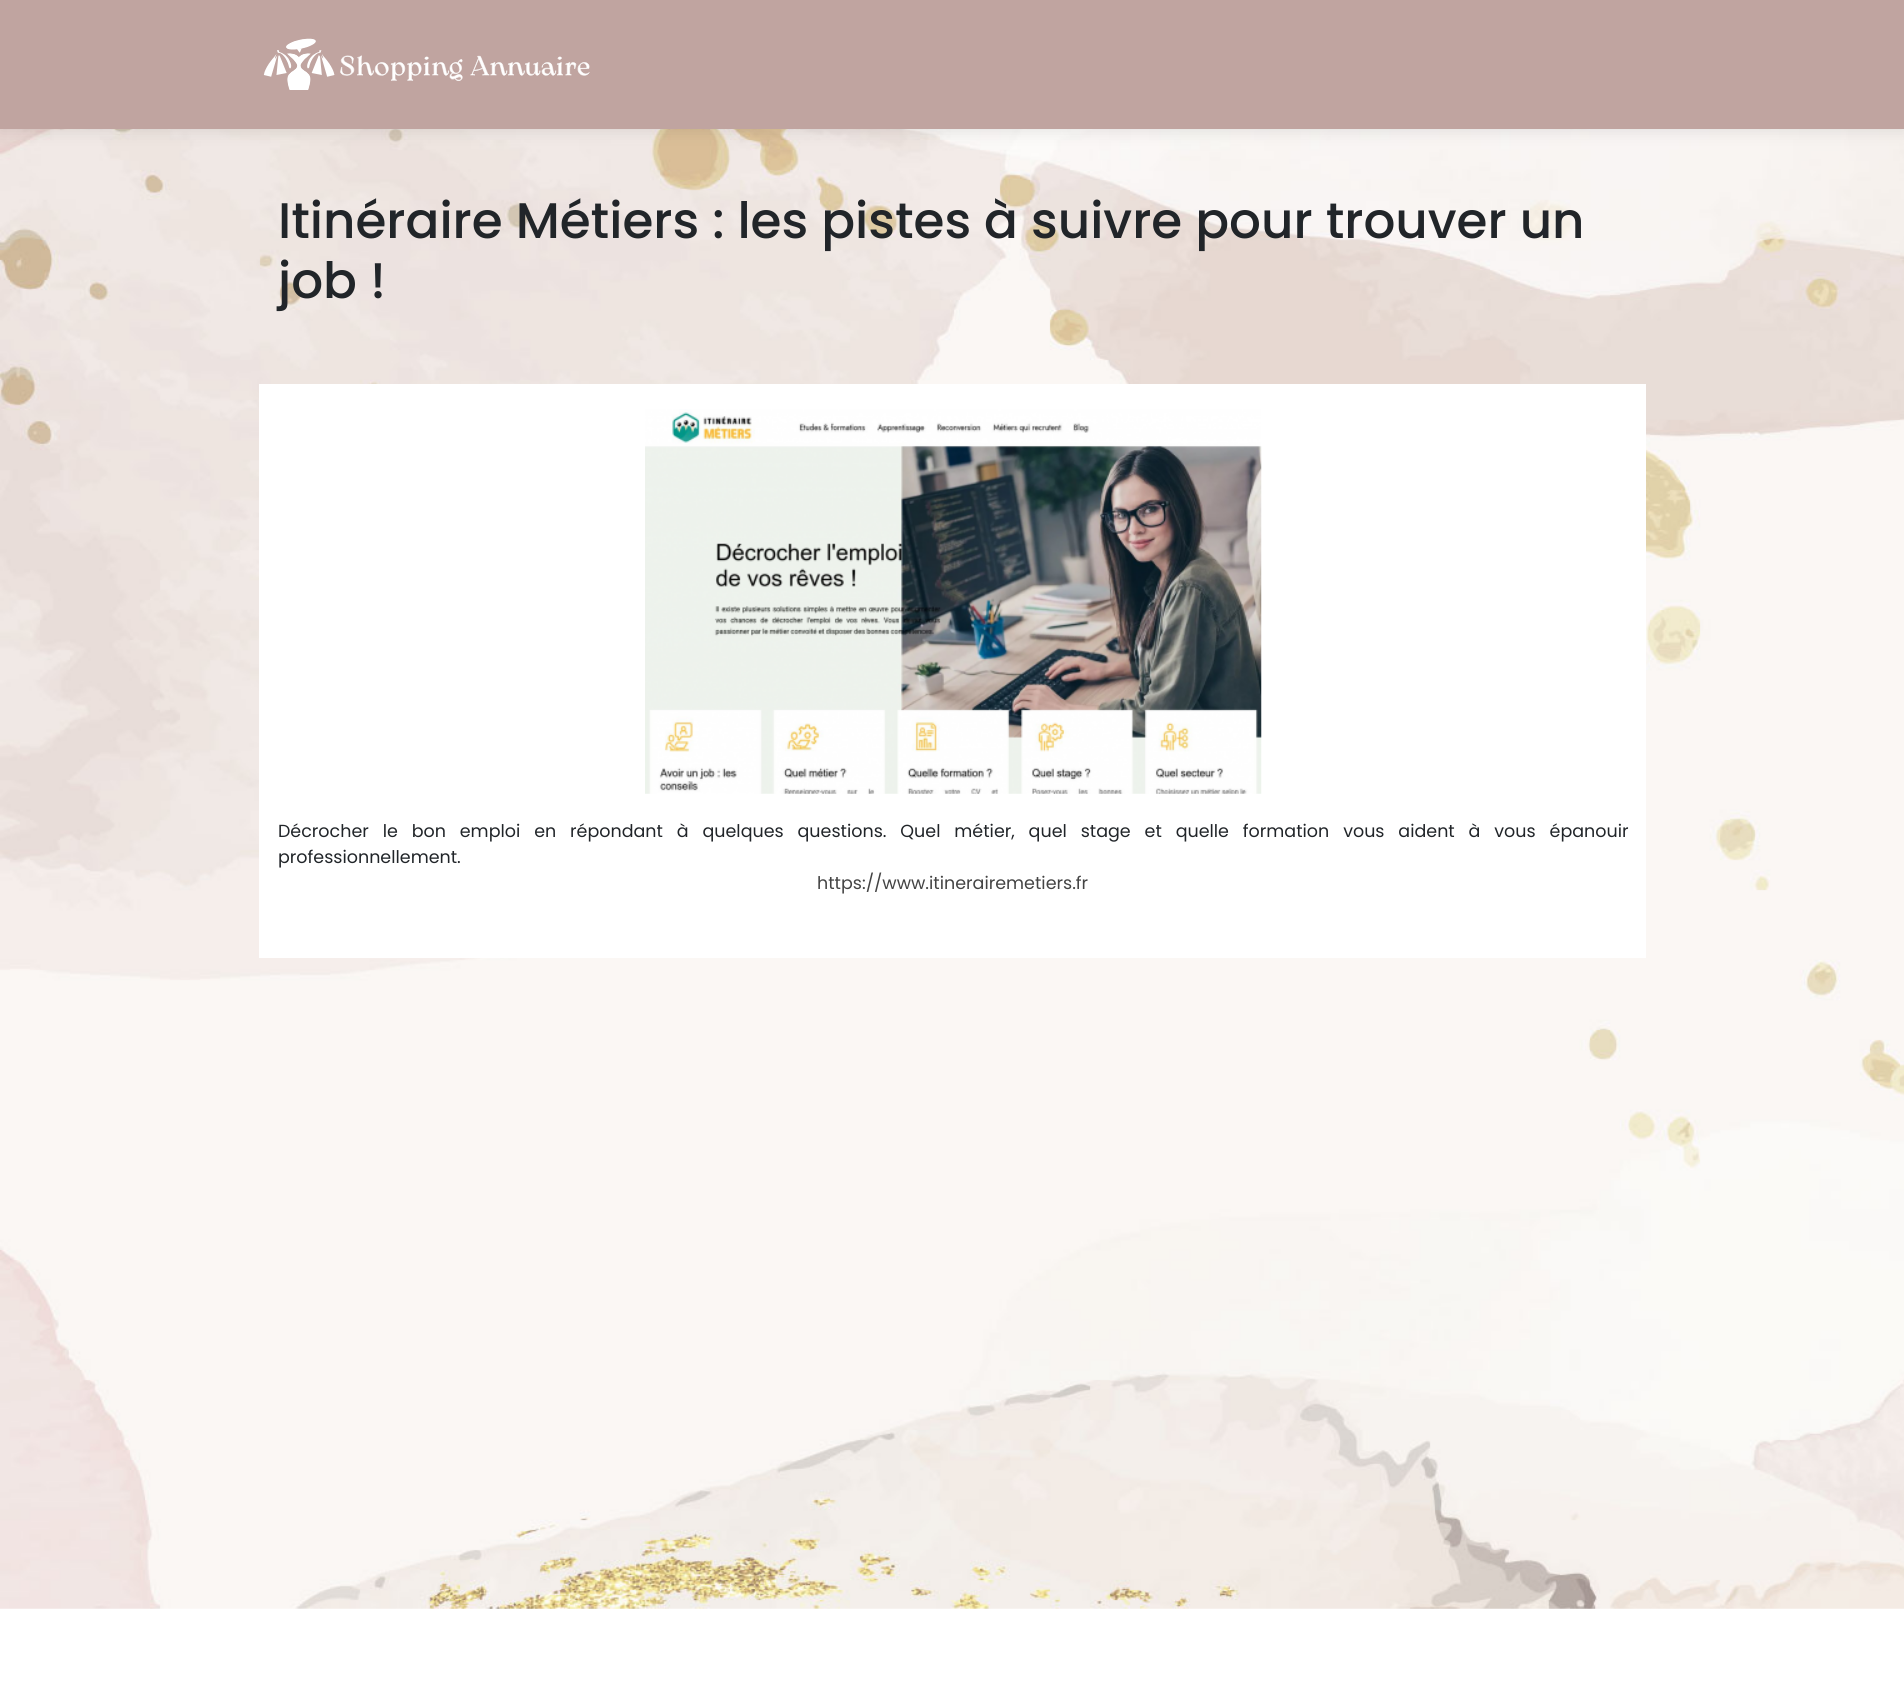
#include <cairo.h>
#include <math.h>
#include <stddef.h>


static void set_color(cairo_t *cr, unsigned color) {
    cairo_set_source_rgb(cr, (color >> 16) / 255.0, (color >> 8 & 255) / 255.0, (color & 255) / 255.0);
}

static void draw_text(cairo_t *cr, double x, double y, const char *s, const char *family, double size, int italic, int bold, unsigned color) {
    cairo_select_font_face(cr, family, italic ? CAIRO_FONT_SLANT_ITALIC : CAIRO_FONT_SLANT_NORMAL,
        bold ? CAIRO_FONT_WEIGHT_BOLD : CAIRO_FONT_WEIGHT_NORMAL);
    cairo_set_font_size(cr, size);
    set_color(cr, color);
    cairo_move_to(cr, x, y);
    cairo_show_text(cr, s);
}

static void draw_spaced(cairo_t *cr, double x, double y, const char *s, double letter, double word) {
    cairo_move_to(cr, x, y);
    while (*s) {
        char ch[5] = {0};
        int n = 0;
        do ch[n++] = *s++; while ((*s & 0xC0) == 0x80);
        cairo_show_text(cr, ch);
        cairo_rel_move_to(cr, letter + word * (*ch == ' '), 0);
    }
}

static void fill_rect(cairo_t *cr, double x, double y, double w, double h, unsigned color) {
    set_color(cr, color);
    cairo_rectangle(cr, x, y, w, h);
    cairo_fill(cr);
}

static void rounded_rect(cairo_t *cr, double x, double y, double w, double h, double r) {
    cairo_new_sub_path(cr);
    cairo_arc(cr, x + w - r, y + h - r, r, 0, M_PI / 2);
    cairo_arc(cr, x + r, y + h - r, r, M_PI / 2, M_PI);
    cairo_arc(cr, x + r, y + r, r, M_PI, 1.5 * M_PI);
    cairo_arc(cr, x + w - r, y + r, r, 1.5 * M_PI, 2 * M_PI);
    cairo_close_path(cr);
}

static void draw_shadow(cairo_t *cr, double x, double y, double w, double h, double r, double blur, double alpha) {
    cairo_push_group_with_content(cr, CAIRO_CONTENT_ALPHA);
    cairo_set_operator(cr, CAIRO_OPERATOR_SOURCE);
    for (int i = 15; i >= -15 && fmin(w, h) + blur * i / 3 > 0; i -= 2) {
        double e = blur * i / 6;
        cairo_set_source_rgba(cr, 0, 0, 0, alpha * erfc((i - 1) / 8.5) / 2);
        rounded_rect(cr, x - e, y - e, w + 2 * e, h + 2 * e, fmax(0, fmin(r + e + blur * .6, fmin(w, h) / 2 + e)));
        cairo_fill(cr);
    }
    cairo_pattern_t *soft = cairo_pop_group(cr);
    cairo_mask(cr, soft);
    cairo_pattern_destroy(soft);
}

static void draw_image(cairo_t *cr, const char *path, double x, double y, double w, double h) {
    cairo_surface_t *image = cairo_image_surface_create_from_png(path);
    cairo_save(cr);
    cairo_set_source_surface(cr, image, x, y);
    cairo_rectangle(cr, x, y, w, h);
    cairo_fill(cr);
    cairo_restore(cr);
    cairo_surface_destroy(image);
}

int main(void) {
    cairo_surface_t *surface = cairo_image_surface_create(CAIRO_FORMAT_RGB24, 1904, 1686);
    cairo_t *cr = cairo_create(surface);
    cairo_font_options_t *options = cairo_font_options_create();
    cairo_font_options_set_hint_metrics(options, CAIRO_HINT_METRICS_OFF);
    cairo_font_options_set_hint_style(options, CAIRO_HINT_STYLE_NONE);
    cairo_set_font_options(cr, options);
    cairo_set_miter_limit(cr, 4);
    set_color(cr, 0xFFFFFF);
    cairo_paint(cr);
    draw_image(cr, "assets/img1.png", 0, 129, 1904, 1480);
    set_color(cr, 0x000000);
    draw_shadow(cr, 0, 3, 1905, 128, 0, 8, 0.1);
    fill_rect(cr, 0, 0, 1904, 129, 0xC0A4A0);
    draw_image(cr, "assets/img2.png", 263, 38, 327, 52);
    draw_text(cr, 278, 238, "Itinéraire Métiers : les pistes à suivre pour trouver un", "Poppins Medium", 50, 0, 0, 0x212529);
    draw_text(cr, 278, 298, "job !", "Poppins Medium", 50, 0, 0, 0x212529);
    fill_rect(cr, 259, 384, 1387, 574, 0xFFFFFF);
    draw_image(cr, "assets/img3.png", 645, 409, 617, 385);
    cairo_select_font_face(cr, "Poppins", CAIRO_FONT_SLANT_NORMAL, CAIRO_FONT_WEIGHT_NORMAL);
    cairo_set_font_size(cr, 17.5);
    set_color(cr, 0x212529);
    draw_spaced(cr, 278, 837, "Décrocher le bon emploi en répondant à quelques questions. Quel métier, quel stage et quelle formation vous aident à vous épanouir", 0, 9.2);
    draw_text(cr, 278, 863, "professionnellement.", "Poppins", 17.5, 0, 0, 0x212529);
    draw_text(cr, 817, 889, "https://www.itinerairemetiers.fr", "Poppins", 17.5, 0, 0, 0x444444);
    cairo_surface_write_to_png(surface, "output.png");
    cairo_font_options_destroy(options);
    cairo_destroy(cr);
    cairo_surface_destroy(surface);
    return 0;
}
